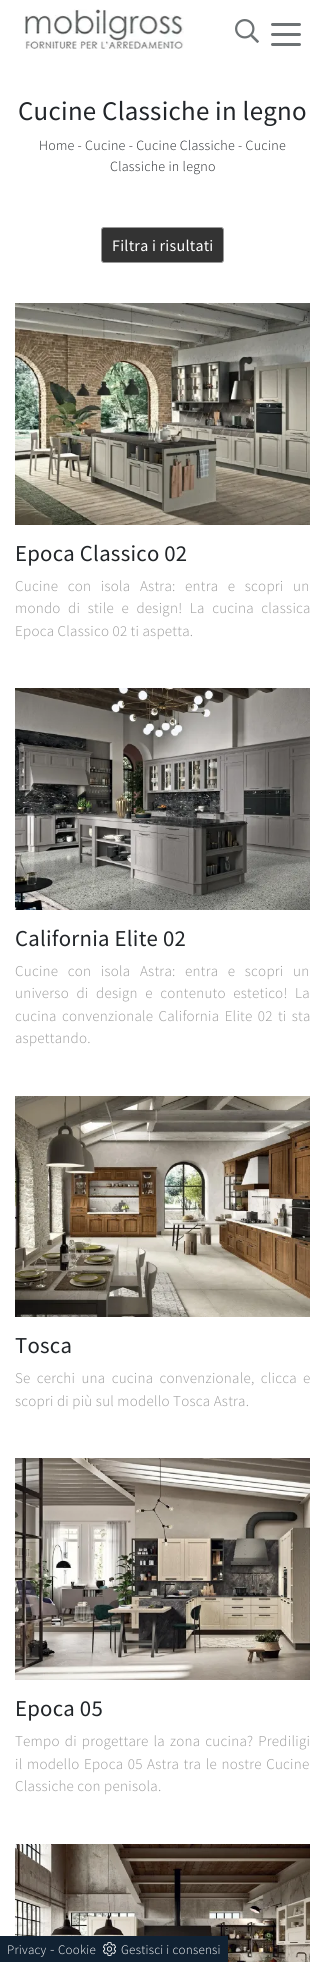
#include <cairo.h>
#include <math.h>
#include <stddef.h>


static void set_color(cairo_t *cr, unsigned color) {
    cairo_set_source_rgb(cr, (color >> 16) / 255.0, (color >> 8 & 255) / 255.0, (color & 255) / 255.0);
}

static void draw_spaced(cairo_t *cr, double x, double y, const char *s, double letter, double word) {
    cairo_move_to(cr, x, y);
    while (*s) {
        char ch[5] = {0};
        int n = 0;
        do ch[n++] = *s++; while ((*s & 0xC0) == 0x80);
        cairo_show_text(cr, ch);
        cairo_rel_move_to(cr, letter + word * (*ch == ' '), 0);
    }
}

static void fill_rect(cairo_t *cr, double x, double y, double w, double h, unsigned color) {
    set_color(cr, color);
    cairo_rectangle(cr, x, y, w, h);
    cairo_fill(cr);
}

static void rounded_rect(cairo_t *cr, double x, double y, double w, double h, double r) {
    cairo_new_sub_path(cr);
    cairo_arc(cr, x + w - r, y + h - r, r, 0, M_PI / 2);
    cairo_arc(cr, x + r, y + h - r, r, M_PI / 2, M_PI);
    cairo_arc(cr, x + r, y + r, r, M_PI, 1.5 * M_PI);
    cairo_arc(cr, x + w - r, y + r, r, 1.5 * M_PI, 2 * M_PI);
    cairo_close_path(cr);
}

static void draw_image(cairo_t *cr, const char *path, double x, double y, double w, double h) {
    cairo_surface_t *image = cairo_image_surface_create_from_png(path);
    cairo_save(cr);
    cairo_set_source_surface(cr, image, x, y);
    cairo_rectangle(cr, x, y, w, h);
    cairo_fill(cr);
    cairo_restore(cr);
    cairo_surface_destroy(image);
}

int main(void) {
    cairo_surface_t *surface = cairo_image_surface_create(CAIRO_FORMAT_RGB24, 325, 1962);
    cairo_t *cr = cairo_create(surface);
    cairo_font_options_t *options = cairo_font_options_create();
    cairo_font_options_set_hint_metrics(options, CAIRO_HINT_METRICS_OFF);
    cairo_font_options_set_hint_style(options, CAIRO_HINT_STYLE_NONE);
    cairo_set_font_options(cr, options);
    cairo_set_miter_limit(cr, 4);
    set_color(cr, 0xFFFFFF);
    cairo_paint(cr);
    draw_image(cr, "assets/img1.png", 24, 9, 160, 40);
    draw_image(cr, "assets/img2.png", 235, 19, 24, 24);
    set_color(cr, 0x6D7274);
    rounded_rect(cr, 271, 23, 30, 3, 1.5);
    cairo_fill(cr);
    rounded_rect(cr, 271, 33, 30, 3, 1.5);
    cairo_fill(cr);
    rounded_rect(cr, 271, 43, 30, 3, 1.5);
    cairo_fill(cr);
    cairo_select_font_face(cr, "Source Sans Pro", CAIRO_FONT_SLANT_NORMAL, CAIRO_FONT_WEIGHT_NORMAL);
    cairo_set_font_size(cr, 26.9);
    set_color(cr, 0x212529);
    draw_spaced(cr, 18, 120, "Cucine Classiche in legno", 0.25, 0);
    cairo_select_font_face(cr, "Source Sans Pro Light", CAIRO_FONT_SLANT_NORMAL, CAIRO_FONT_WEIGHT_NORMAL);
    cairo_set_font_size(cr, 14);
    draw_spaced(cr, 39, 150, "Home - Cucine - Cucine Classiche - Cucine", 0.25, 0);
    draw_spaced(cr, 110, 171, "Classiche in legno", 0.25, 0);
    set_color(cr, 0x333333);
    rounded_rect(cr, 101.5, 227.5, 122, 35, 2.5);
    cairo_fill_preserve(cr);
    set_color(cr, 0x999999);
    cairo_set_line_width(cr, 1);
    cairo_stroke(cr);
    cairo_select_font_face(cr, "Source Sans Pro", CAIRO_FONT_SLANT_NORMAL, CAIRO_FONT_WEIGHT_NORMAL);
    cairo_set_font_size(cr, 16);
    set_color(cr, 0xFFFFFF);
    draw_spaced(cr, 112, 251, "Filtra i risultati", 0.25, 0);
    draw_image(cr, "assets/img3.png", 15, 303, 295, 222);
    cairo_set_font_size(cr, 22.75);
    set_color(cr, 0x212529);
    draw_spaced(cr, 15, 561, "Epoca Classico 02", 0.25, 0);
    cairo_select_font_face(cr, "Source Sans Pro Light", CAIRO_FONT_SLANT_NORMAL, CAIRO_FONT_WEIGHT_NORMAL);
    cairo_set_font_size(cr, 15);
    set_color(cr, 0x999999);
    draw_spaced(cr, 15, 591, "Cucine con isola Astra: entra e scopri un", 0.25, 6.25);
    draw_spaced(cr, 15, 613, "mondo di stile e design! La cucina classica", 0.25, 4.25);
    draw_spaced(cr, 15, 636, "Epoca Classico 02 ti aspetta.", 0.25, 0);
    draw_image(cr, "assets/img4.png", 15, 688, 295, 222);
    cairo_select_font_face(cr, "Source Sans Pro", CAIRO_FONT_SLANT_NORMAL, CAIRO_FONT_WEIGHT_NORMAL);
    cairo_set_font_size(cr, 22.75);
    set_color(cr, 0x212529);
    draw_spaced(cr, 15, 946, "California Elite 02", 0.25, 0);
    cairo_select_font_face(cr, "Source Sans Pro Light", CAIRO_FONT_SLANT_NORMAL, CAIRO_FONT_WEIGHT_NORMAL);
    cairo_set_font_size(cr, 15);
    set_color(cr, 0x999999);
    draw_spaced(cr, 15, 976, "Cucine con isola Astra: entra e scopri un", 0.25, 6.25);
    draw_spaced(cr, 15, 998, "universo di design e contenuto estetico! La", 0.25, 4.25);
    draw_spaced(cr, 15, 1021, "cucina convenzionale California Elite 02 ti sta", 0.25, 2);
    draw_spaced(cr, 15, 1043, "aspettando.", 0.25, 0);
    draw_image(cr, "assets/img5.png", 15, 1096, 295, 221);
    cairo_select_font_face(cr, "Source Sans Pro", CAIRO_FONT_SLANT_NORMAL, CAIRO_FONT_WEIGHT_NORMAL);
    cairo_set_font_size(cr, 22.75);
    set_color(cr, 0x212529);
    draw_spaced(cr, 15, 1353, "Tosca", 0.25, 0);
    cairo_select_font_face(cr, "Source Sans Pro Light", CAIRO_FONT_SLANT_NORMAL, CAIRO_FONT_WEIGHT_NORMAL);
    cairo_set_font_size(cr, 15);
    set_color(cr, 0x999999);
    draw_spaced(cr, 15, 1383, "Se cerchi una cucina convenzionale, clicca e", 0.25, 3);
    draw_spaced(cr, 15, 1406, "scopri di più sul modello Tosca Astra.", 0.25, 0);
    draw_image(cr, "assets/img6.png", 15, 1458, 295, 222);
    cairo_select_font_face(cr, "Source Sans Pro", CAIRO_FONT_SLANT_NORMAL, CAIRO_FONT_WEIGHT_NORMAL);
    cairo_set_font_size(cr, 22.75);
    set_color(cr, 0x212529);
    draw_spaced(cr, 15, 1716, "Epoca 05", 0.25, 0);
    cairo_select_font_face(cr, "Source Sans Pro Light", CAIRO_FONT_SLANT_NORMAL, CAIRO_FONT_WEIGHT_NORMAL);
    cairo_set_font_size(cr, 15);
    set_color(cr, 0x999999);
    draw_spaced(cr, 15, 1746, "Tempo di progettare la zona cucina? Prediligi", 0.25, 1.75);
    draw_spaced(cr, 15, 1769, "il modello Epoca 05 Astra tra le nostre Cucine", 0.25, 1.25);
    draw_spaced(cr, 15, 1791, "Classiche con penisola.", 0.25, 0);
    draw_image(cr, "assets/img7.png", 15, 1844, 295, 118);
    fill_rect(cr, 0, 1936, 228, 26, 0x112233);
    cairo_set_font_size(cr, 13);
    set_color(cr, 0xFFFFFF);
    draw_spaced(cr, 7, 1954, "Privacy", 0.25, 0);
    cairo_set_font_size(cr, 15);
    draw_spaced(cr, 50, 1954, "-", 0.25, 0);
    cairo_set_font_size(cr, 13);
    draw_spaced(cr, 58, 1954, "Cookie", 0.25, 0);
    draw_image(cr, "assets/img8.png", 103, 1942, 13, 14);
    draw_spaced(cr, 121, 1954, "Gestisci i consensi", 0.25, 0);
    cairo_surface_write_to_png(surface, "output.png");
    cairo_font_options_destroy(options);
    cairo_destroy(cr);
    cairo_surface_destroy(surface);
    return 0;
}
